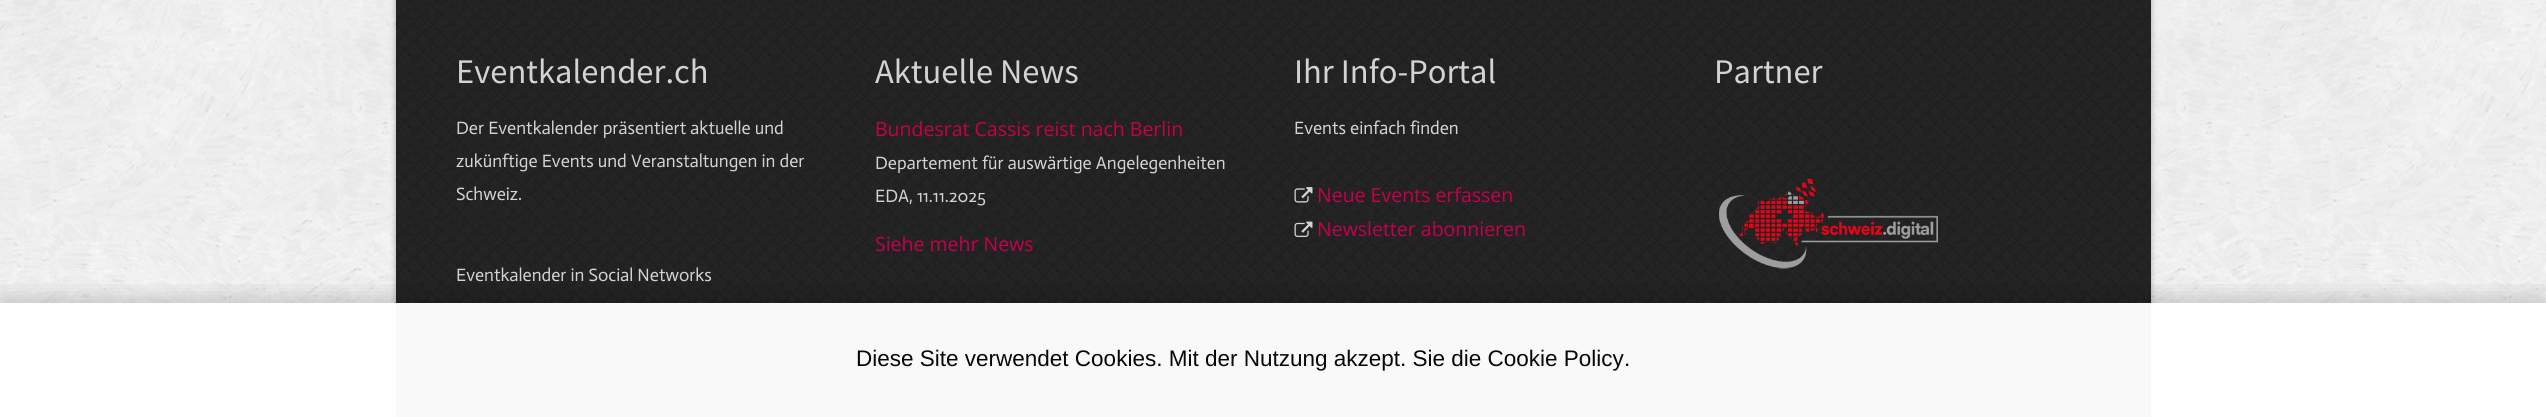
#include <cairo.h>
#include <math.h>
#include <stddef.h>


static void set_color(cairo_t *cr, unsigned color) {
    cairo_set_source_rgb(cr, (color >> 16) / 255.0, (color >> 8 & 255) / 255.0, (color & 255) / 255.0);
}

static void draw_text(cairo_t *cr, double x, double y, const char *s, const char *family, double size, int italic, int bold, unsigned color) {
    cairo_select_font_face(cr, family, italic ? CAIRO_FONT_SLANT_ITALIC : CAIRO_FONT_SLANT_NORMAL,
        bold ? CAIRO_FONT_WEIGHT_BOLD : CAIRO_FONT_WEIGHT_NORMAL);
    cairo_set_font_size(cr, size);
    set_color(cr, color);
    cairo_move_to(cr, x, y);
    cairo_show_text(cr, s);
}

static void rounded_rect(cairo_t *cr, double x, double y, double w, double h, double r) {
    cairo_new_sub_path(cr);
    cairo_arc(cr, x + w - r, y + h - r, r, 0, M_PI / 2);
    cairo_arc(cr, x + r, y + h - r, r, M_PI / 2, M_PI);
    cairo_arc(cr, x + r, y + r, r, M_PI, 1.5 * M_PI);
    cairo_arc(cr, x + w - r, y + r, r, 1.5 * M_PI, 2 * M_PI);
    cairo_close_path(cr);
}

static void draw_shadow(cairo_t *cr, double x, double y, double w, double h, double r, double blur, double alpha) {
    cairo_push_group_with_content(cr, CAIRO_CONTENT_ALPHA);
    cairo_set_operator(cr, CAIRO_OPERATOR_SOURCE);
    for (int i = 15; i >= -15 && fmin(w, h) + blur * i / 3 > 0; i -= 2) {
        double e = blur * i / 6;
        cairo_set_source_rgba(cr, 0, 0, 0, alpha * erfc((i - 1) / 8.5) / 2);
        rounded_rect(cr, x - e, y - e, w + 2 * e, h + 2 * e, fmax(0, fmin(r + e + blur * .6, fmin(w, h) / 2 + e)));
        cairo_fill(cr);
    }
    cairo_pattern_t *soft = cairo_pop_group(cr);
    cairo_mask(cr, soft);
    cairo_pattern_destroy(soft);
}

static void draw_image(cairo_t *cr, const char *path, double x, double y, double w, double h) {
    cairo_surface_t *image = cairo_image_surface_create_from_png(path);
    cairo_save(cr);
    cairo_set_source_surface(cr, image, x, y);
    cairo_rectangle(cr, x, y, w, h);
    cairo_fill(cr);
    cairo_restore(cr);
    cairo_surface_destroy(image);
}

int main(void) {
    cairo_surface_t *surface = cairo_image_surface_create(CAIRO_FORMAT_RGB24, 2546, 417);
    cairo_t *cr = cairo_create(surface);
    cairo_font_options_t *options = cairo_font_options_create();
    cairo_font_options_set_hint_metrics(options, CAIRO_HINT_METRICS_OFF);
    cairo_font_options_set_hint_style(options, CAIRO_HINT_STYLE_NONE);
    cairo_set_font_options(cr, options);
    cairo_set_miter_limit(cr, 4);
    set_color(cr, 0xFFFFFF);
    cairo_paint(cr);
    draw_image(cr, "assets/img1.png", 0, 0, 2546, 417);
    set_color(cr, 0x000000);
    draw_shadow(cr, 396, -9, 1755, 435, 0, 3, 0.3);
    draw_image(cr, "assets/img2.png", 396, 0, 1755, 417);
    draw_text(cr, 456, 83, "Eventkalender.ch", "Source Sans Pro", 34.5, 0, 0, 0xD3D3D3);
    draw_text(cr, 456, 134, "Der Eventkalender präsentiert aktuelle und", "Actor", 18, 0, 0, 0xD3D3D3);
    draw_text(cr, 456, 167, "zukünftige Events und Veranstaltungen in der", "Actor", 18, 0, 0, 0xD3D3D3);
    draw_text(cr, 456, 200, "Schweiz.", "Actor", 18, 0, 0, 0xD3D3D3);
    draw_text(cr, 456, 281, "Eventkalender in Social Networks", "Actor", 18, 0, 0, 0xD3D3D3);
    draw_text(cr, 875, 83, "Aktuelle News", "Source Sans Pro", 34.5, 0, 0, 0xD3D3D3);
    draw_text(cr, 875, 136, "Bundesrat Cassis reist nach Berlin", "Open Sans", 19.5, 0, 0, 0xC6004A);
    draw_text(cr, 875, 169, "Departement für auswärtige Angelegenheiten", "Actor", 18, 0, 0, 0xD3D3D3);
    draw_text(cr, 875, 202, "EDA, 11.11.2025", "Actor", 18, 0, 0, 0xD3D3D3);
    draw_text(cr, 875, 251, "Siehe mehr News", "Open Sans", 19.5, 0, 0, 0xC6004A);
    draw_text(cr, 1294, 83, "Ihr Info-Portal", "Source Sans Pro", 34.5, 0, 0, 0xD3D3D3);
    draw_text(cr, 1294, 134, "Events einfach finden", "Actor", 18, 0, 0, 0xD3D3D3);
    draw_image(cr, "assets/img3.png", 1294, 187, 19, 16);
    draw_text(cr, 1317, 202, "Neue Events erfassen", "Open Sans", 19.5, 0, 0, 0xC6004A);
    draw_image(cr, "assets/img4.png", 1294, 221, 19, 16);
    draw_text(cr, 1317, 236, "Newsletter abonnieren", "Open Sans", 19.5, 0, 0, 0xC6004A);
    draw_text(cr, 1714, 83, "Partner", "Source Sans Pro", 34.5, 0, 0, 0xD3D3D3);
    draw_image(cr, "assets/img5.png", 1719, 178, 219, 91);
    cairo_save(cr);
    cairo_rectangle(cr, 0, 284, 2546, 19);
    cairo_clip(cr);
    set_color(cr, 0x000000);
    draw_shadow(cr, 2, 297, 2544, 111, 0, 11, 0.18);
    cairo_restore(cr);
    cairo_set_source_rgba(cr, 1, 1, 1, 0.97);
    cairo_rectangle(cr, 0, 303, 2546, 114);
    cairo_fill(cr);
    draw_text(cr, 856, 366, "Diese Site verwendet Cookies. Mit der Nutzung akzept. Sie die Cookie Policy", "Liberation Sans", 22.5, 0, 0, 0x070707);
    draw_text(cr, 1624, 366, ".", "Liberation Sans", 22.5, 0, 0, 0x010101);
    cairo_surface_write_to_png(surface, "output.png");
    cairo_font_options_destroy(options);
    cairo_destroy(cr);
    cairo_surface_destroy(surface);
    return 0;
}
